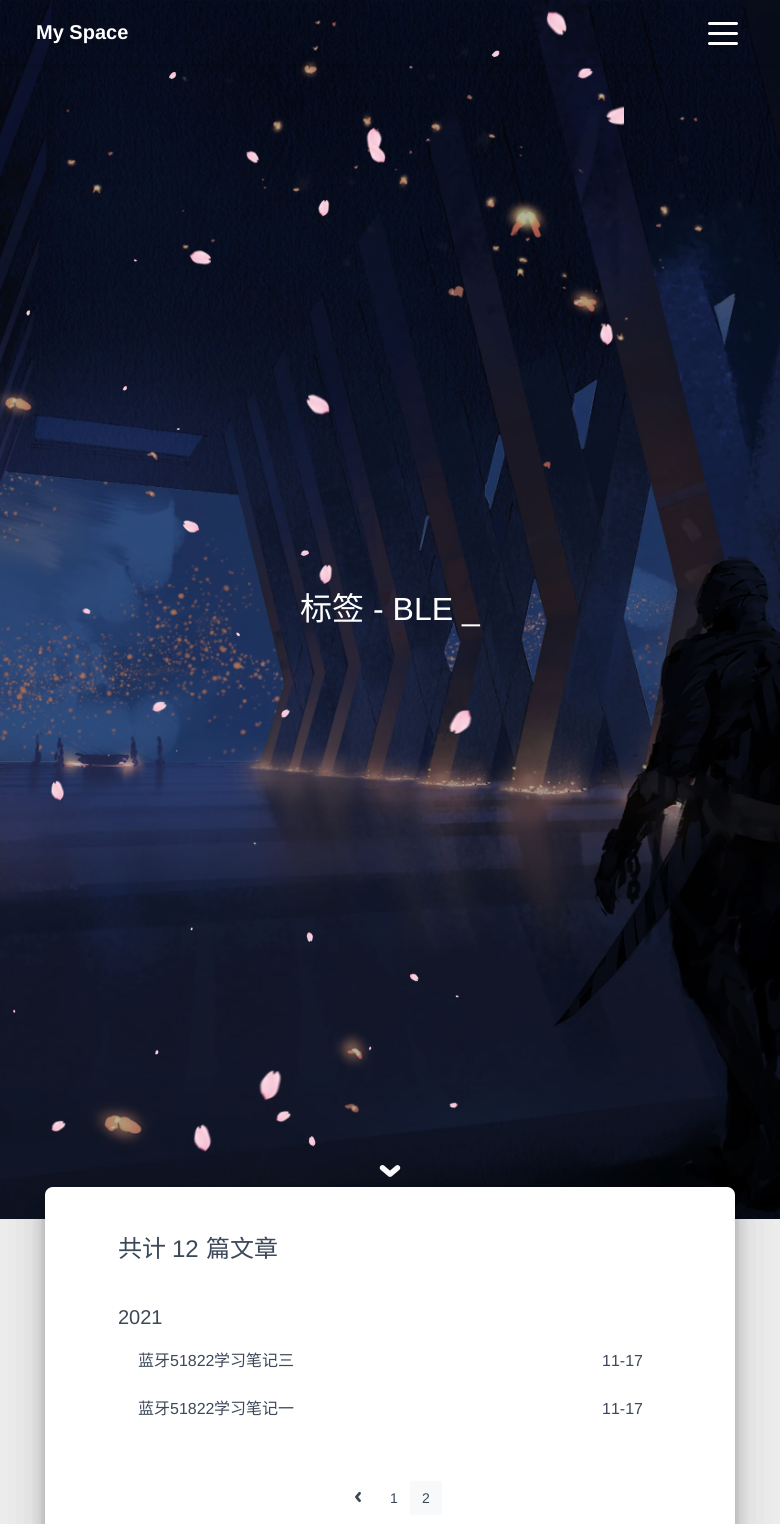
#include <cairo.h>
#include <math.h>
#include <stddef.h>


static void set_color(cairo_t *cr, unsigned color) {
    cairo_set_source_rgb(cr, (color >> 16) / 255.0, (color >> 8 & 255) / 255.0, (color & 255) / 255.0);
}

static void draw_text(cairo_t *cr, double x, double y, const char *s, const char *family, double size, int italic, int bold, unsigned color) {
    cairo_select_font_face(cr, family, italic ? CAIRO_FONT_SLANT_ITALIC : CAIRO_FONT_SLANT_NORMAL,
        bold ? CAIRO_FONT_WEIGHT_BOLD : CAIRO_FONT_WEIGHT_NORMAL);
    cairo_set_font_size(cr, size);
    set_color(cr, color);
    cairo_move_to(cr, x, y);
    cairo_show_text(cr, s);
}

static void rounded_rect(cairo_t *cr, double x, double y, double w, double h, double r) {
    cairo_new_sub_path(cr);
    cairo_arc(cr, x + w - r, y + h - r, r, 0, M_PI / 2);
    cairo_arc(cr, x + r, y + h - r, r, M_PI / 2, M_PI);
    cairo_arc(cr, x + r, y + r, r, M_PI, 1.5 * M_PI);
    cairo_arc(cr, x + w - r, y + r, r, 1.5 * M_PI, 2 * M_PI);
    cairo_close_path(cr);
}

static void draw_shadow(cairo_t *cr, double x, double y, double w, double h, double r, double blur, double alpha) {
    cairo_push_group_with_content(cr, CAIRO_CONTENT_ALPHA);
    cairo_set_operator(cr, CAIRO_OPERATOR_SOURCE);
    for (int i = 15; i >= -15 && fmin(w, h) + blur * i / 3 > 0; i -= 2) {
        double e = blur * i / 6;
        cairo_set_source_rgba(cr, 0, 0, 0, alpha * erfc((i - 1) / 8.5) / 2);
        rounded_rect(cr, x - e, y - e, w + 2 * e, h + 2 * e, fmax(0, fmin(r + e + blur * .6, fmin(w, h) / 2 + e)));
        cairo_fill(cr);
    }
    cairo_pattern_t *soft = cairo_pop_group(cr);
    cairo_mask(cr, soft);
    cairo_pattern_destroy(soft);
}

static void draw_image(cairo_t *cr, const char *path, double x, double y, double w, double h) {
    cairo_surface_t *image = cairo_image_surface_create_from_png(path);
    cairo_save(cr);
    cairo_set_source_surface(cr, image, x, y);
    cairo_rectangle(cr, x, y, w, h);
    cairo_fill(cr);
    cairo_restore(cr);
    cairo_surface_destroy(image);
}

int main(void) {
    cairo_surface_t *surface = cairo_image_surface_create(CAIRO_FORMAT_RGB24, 780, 1524);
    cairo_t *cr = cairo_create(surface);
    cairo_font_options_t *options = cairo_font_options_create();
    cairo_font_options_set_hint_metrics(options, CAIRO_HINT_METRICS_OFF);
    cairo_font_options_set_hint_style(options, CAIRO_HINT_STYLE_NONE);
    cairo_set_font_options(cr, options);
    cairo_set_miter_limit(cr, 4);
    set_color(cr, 0xEEEEEE);
    cairo_paint(cr);
    draw_image(cr, "assets/img2.png", 0, 0, 780, 1219);
    draw_text(cr, 300, 620, "标签", "Noto Sans CJK SC", 32, 0, 0, 0xFFFFFF);
    draw_text(cr, 373, 620, "- BLE _", "Liberation Sans", 32, 0, 0, 0xFFFFFF);
    draw_image(cr, "assets/img1.png", 13, 11, 611, 1141);
    cairo_save(cr);
    cairo_rectangle(cr, 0, 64, 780, 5);
    cairo_clip(cr);
    set_color(cr, 0x000000);
    draw_shadow(cr, 0, 2, 780, 64, 0, 2.5, 0.16);
    cairo_restore(cr);
    draw_text(cr, 36, 39, "My Space", "Liberation Sans", 20, 0, 1, 0xFFFFFF);
    rounded_rect(cr, 708, 22, 30, 3, 1.5);
    cairo_fill(cr);
    rounded_rect(cr, 708, 32, 30, 3, 1.5);
    cairo_fill(cr);
    rounded_rect(cr, 708, 42, 30, 3, 1.5);
    cairo_fill(cr);
    draw_image(cr, "assets/img3.png", 379, 1165, 22, 12);
    set_color(cr, 0x000000);
    draw_shadow(cr, 45, 1204, 690, 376, 8, 25, 0.19);
    draw_shadow(cr, 45, 1199, 690, 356, 8, 7.5, 0.24);
    set_color(cr, 0xFFFFFF);
    rounded_rect(cr, 45, 1187, 690, 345, 8);
    cairo_fill(cr);
    draw_text(cr, 118, 1257, "共计", "Noto Sans CJK SC", 24, 0, 0, 0x3C4858);
    draw_text(cr, 172, 1257, "12", "Liberation Sans", 24, 0, 0, 0x3C4858);
    draw_text(cr, 206, 1257, "篇文章", "Noto Sans CJK SC", 24, 0, 0, 0x3C4858);
    draw_text(cr, 118, 1324, "2021", "Liberation Sans", 20, 0, 0, 0x3C4858);
    draw_text(cr, 138, 1366, "蓝牙", "Noto Sans CJK SC", 16, 0, 0, 0x3C4858);
    draw_text(cr, 170, 1366, "51822", "Liberation Sans", 16, 0, 0, 0x3C4858);
    draw_text(cr, 214, 1366, "学习笔记三", "Noto Sans CJK SC", 16, 0, 0, 0x3C4858);
    draw_text(cr, 602, 1366, "11-17", "Liberation Sans", 16, 0, 0, 0x3C4858);
    draw_text(cr, 138, 1414, "蓝牙", "Noto Sans CJK SC", 16, 0, 0, 0x3C4858);
    draw_text(cr, 170, 1414, "51822", "Liberation Sans", 16, 0, 0, 0x3C4858);
    draw_text(cr, 214, 1414, "学习笔记一", "Noto Sans CJK SC", 16, 0, 0, 0x3C4858);
    draw_text(cr, 602, 1414, "11-17", "Liberation Sans", 16, 0, 0, 0x3C4858);
    draw_image(cr, "assets/img4.png", 355, 1491, 6, 12);
    draw_text(cr, 390, 1503, "1", "Liberation Sans", 14, 0, 0, 0x3C4858);
    set_color(cr, 0xF8F9FA);
    rounded_rect(cr, 410, 1481, 32, 34, 2);
    cairo_fill(cr);
    draw_text(cr, 422, 1503, "2", "Liberation Sans", 14, 0, 0, 0x3C4858);
    cairo_surface_write_to_png(surface, "output.png");
    cairo_font_options_destroy(options);
    cairo_destroy(cr);
    cairo_surface_destroy(surface);
    return 0;
}
